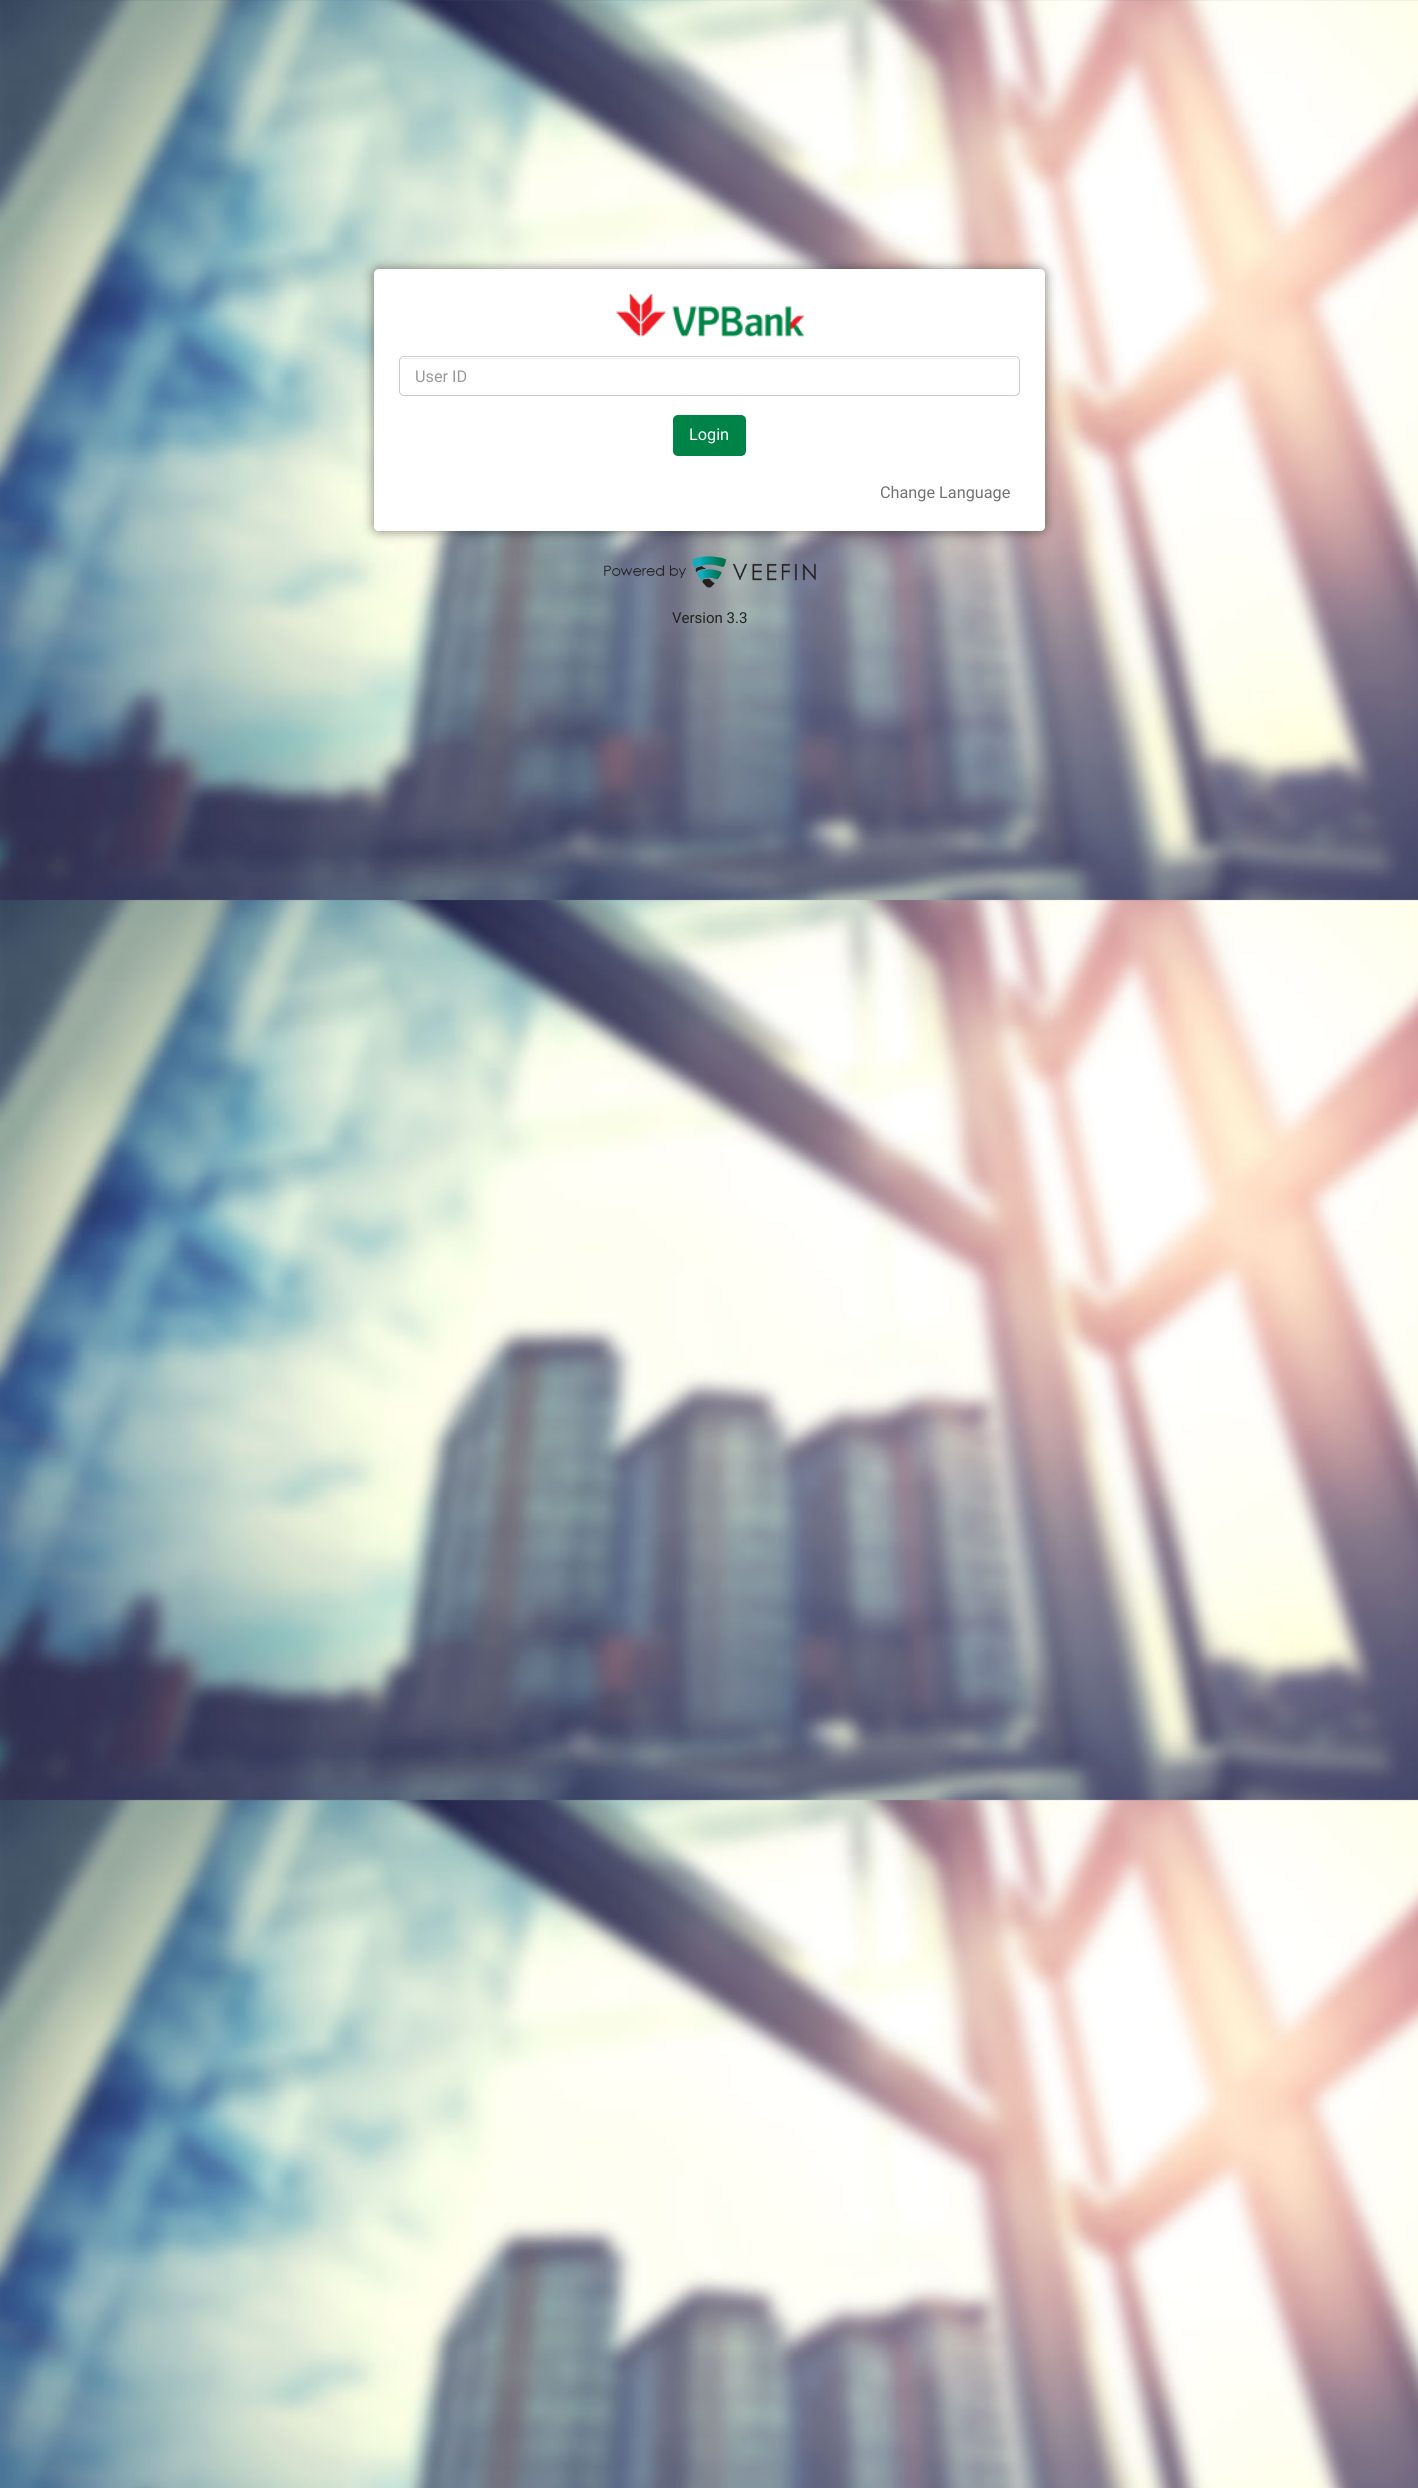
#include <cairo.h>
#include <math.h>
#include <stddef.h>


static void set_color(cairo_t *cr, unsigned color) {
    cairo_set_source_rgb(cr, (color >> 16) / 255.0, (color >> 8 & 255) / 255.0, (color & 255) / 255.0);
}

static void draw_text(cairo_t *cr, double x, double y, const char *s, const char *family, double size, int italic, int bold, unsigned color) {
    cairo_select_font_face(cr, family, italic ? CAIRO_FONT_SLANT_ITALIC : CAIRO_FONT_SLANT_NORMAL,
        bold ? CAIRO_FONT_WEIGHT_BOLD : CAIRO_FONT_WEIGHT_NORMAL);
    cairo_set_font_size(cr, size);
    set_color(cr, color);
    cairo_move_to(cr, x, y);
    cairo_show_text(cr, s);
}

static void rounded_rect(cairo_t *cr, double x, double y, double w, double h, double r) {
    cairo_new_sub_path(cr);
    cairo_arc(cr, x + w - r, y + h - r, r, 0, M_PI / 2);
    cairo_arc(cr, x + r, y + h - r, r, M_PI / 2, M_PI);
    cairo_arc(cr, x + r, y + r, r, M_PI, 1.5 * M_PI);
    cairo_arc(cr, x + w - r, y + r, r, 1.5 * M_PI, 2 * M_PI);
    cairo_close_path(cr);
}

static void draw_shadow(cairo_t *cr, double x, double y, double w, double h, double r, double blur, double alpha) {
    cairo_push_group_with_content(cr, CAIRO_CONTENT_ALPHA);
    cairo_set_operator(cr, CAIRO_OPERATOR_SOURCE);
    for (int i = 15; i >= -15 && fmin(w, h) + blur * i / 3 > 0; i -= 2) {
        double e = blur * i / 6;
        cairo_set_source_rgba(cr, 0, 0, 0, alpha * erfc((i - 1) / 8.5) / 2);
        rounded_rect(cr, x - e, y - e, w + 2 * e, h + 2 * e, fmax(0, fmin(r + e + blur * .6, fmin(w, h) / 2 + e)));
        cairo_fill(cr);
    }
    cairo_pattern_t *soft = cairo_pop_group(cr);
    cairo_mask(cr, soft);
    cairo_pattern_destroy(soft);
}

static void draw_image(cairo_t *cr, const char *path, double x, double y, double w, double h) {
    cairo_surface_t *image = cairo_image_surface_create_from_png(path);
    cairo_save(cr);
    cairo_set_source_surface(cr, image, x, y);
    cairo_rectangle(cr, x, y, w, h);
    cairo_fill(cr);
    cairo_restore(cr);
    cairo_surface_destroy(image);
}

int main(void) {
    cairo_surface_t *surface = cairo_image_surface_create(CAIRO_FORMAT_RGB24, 1418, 2488);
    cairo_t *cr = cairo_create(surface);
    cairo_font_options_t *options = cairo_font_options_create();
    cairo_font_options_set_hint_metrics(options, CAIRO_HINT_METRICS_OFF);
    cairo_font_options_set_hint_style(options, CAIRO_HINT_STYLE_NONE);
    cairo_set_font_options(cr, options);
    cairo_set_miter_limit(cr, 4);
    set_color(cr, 0xFFFFFF);
    cairo_paint(cr);
    draw_image(cr, "assets/img1.png", 0, 0, 1418, 2488);
    set_color(cr, 0x000000);
    draw_shadow(cr, 374, 269, 671, 262, 5, 6, 0.5);
    set_color(cr, 0xFFFFFF);
    rounded_rect(cr, 374, 269, 671, 262, 5);
    cairo_fill(cr);
    draw_image(cr, "assets/img2.png", 616, 293, 188, 44);
    set_color(cr, 0xECECEC);
    cairo_new_path(cr);
    cairo_move_to(cr, 404, 359);
    cairo_line_to(cr, 1015, 359);
    cairo_curve_to(cr, 1017, 359, 1019, 360, 1019, 362);
    cairo_curve_to(cr, 1019, 360, 1017, 358, 1015, 358);
    cairo_line_to(cr, 404, 358);
    cairo_curve_to(cr, 402, 358, 400, 360, 400, 362);
    cairo_curve_to(cr, 400, 360, 402, 359, 404, 359);
    cairo_close_path(cr);
    cairo_fill(cr);
    rounded_rect(cr, 399.5, 356.5, 620, 39, 4.5);
    set_color(cr, 0xCCCCCC);
    cairo_set_line_width(cr, 1);
    cairo_stroke(cr);
    draw_text(cr, 415, 382, "User ID", "Roboto", 16.25, 0, 0, 0x999999);
    set_color(cr, 0x008347);
    rounded_rect(cr, 673, 415, 73, 41, 5);
    cairo_fill(cr);
    draw_text(cr, 689, 440, "Login", "Roboto", 16.25, 0, 0, 0xFFFFFF);
    cairo_new_path(cr);
    cairo_move_to(cr, 374, 469);
    cairo_line_to(cr, 1045, 469);
    cairo_line_to(cr, 1045, 526);
    cairo_curve_to(cr, 1045, 529, 1043, 531, 1040, 531);
    cairo_line_to(cr, 379, 531);
    cairo_curve_to(cr, 376, 531, 374, 529, 374, 526);
    cairo_close_path(cr);
    cairo_fill(cr);
    draw_text(cr, 880, 498, "Change Language", "Roboto", 16.25, 0, 0, 0x737373);
    draw_image(cr, "assets/img3.png", 604, 556, 212, 32);
    draw_text(cr, 672, 623, "Version 3.3", "Roboto", 15, 0, 0, 0x222222);
    cairo_surface_write_to_png(surface, "output.png");
    cairo_font_options_destroy(options);
    cairo_destroy(cr);
    cairo_surface_destroy(surface);
    return 0;
}
